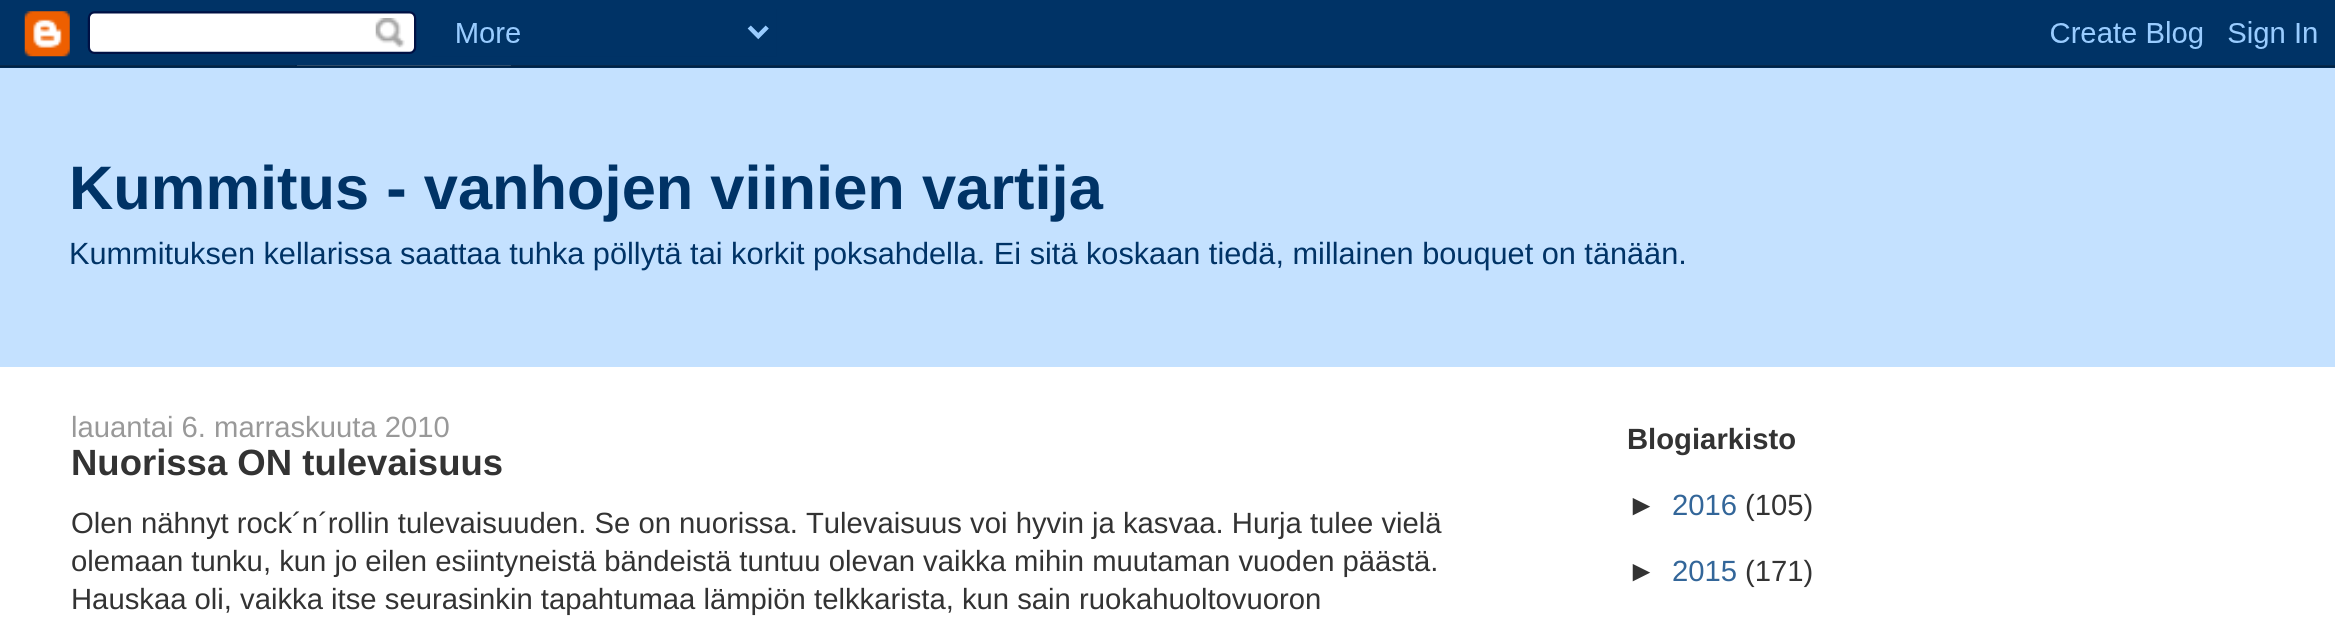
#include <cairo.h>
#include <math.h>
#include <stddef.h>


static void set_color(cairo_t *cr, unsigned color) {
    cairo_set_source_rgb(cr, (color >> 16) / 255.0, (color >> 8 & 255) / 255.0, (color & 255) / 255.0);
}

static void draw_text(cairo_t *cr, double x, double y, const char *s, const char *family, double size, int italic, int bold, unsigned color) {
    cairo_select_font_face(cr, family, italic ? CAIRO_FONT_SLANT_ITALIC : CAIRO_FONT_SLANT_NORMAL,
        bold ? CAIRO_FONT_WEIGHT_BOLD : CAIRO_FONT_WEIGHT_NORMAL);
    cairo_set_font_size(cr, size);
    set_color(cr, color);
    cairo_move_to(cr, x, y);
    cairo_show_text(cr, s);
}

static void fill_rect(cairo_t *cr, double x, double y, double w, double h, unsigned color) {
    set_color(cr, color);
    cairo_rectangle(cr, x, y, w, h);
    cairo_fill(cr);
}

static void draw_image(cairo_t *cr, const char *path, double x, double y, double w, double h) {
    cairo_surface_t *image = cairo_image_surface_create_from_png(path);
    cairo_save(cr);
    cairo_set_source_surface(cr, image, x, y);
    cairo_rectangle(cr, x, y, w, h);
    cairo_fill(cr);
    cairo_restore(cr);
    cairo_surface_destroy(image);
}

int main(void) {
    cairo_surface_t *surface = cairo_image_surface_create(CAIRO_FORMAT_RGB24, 2335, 635);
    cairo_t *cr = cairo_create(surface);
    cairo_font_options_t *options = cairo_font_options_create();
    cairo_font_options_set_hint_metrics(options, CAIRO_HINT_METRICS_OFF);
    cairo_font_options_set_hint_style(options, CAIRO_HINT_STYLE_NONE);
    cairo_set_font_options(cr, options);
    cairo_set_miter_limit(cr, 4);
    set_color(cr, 0xFFFFFF);
    cairo_paint(cr);
    draw_image(cr, "assets/img1.png", 0, 0, 2335, 68);
    fill_rect(cr, 0, 68, 2335, 299, 0xC4E1FF);
    draw_text(cr, 69, 209, "Kummitus - vanhojen viinien vartija", "Liberation Sans", 61.4, 0, 1, 0x003366);
    draw_text(cr, 69, 264, "Kummituksen kellarissa saattaa tuhka pöllytä tai korkit poksahdella. Ei sitä koskaan tiedä, millainen bouquet on tänään.", "Liberation Sans", 30.7, 0, 0, 0x003366);
    draw_text(cr, 71, 437, "lauantai 6. marraskuuta 2010", "Liberation Sans", 29.25, 0, 0, 0x999999);
    draw_text(cr, 71, 475, "Nuorissa ON tulevaisuus", "Liberation Sans", 36.5, 0, 1, 0x333333);
    draw_text(cr, 71, 533, "Olen nähnyt rock´n´rollin tulevaisuuden. Se on nuorissa. Tulevaisuus voi hyvin ja kasvaa. Hurja tulee vielä", "Liberation Sans", 29.25, 0, 0, 0x333333);
    draw_text(cr, 71, 571, "olemaan tunku, kun jo eilen esiintyneistä bändeistä tuntuu olevan vaikka mihin muutaman vuoden päästä.", "Liberation Sans", 29.25, 0, 0, 0x333333);
    draw_text(cr, 71, 609, "Hauskaa oli, vaikka itse seurasinkin tapahtumaa lämpiön telkkarista, kun sain ruokahuoltovuoron", "Liberation Sans", 29.25, 0, 0, 0x333333);
    draw_text(cr, 1627, 449, "Blogiarkisto", "Liberation Sans", 29.25, 0, 1, 0x333333);
    draw_text(cr, 1627, 515, "►", "Liberation Sans", 29.25, 0, 0, 0x333333);
    draw_text(cr, 1672, 515, "2016", "Liberation Sans", 29.25, 0, 0, 0x336699);
    draw_text(cr, 1745, 515, "(105)", "Liberation Sans", 29.25, 0, 0, 0x333333);
    draw_text(cr, 1627, 581, "►", "Liberation Sans", 29.25, 0, 0, 0x333333);
    draw_text(cr, 1672, 581, "2015", "Liberation Sans", 29.25, 0, 0, 0x336699);
    draw_text(cr, 1745, 581, "(171)", "Liberation Sans", 29.25, 0, 0, 0x333333);
    cairo_surface_write_to_png(surface, "output.png");
    cairo_font_options_destroy(options);
    cairo_destroy(cr);
    cairo_surface_destroy(surface);
    return 0;
}
